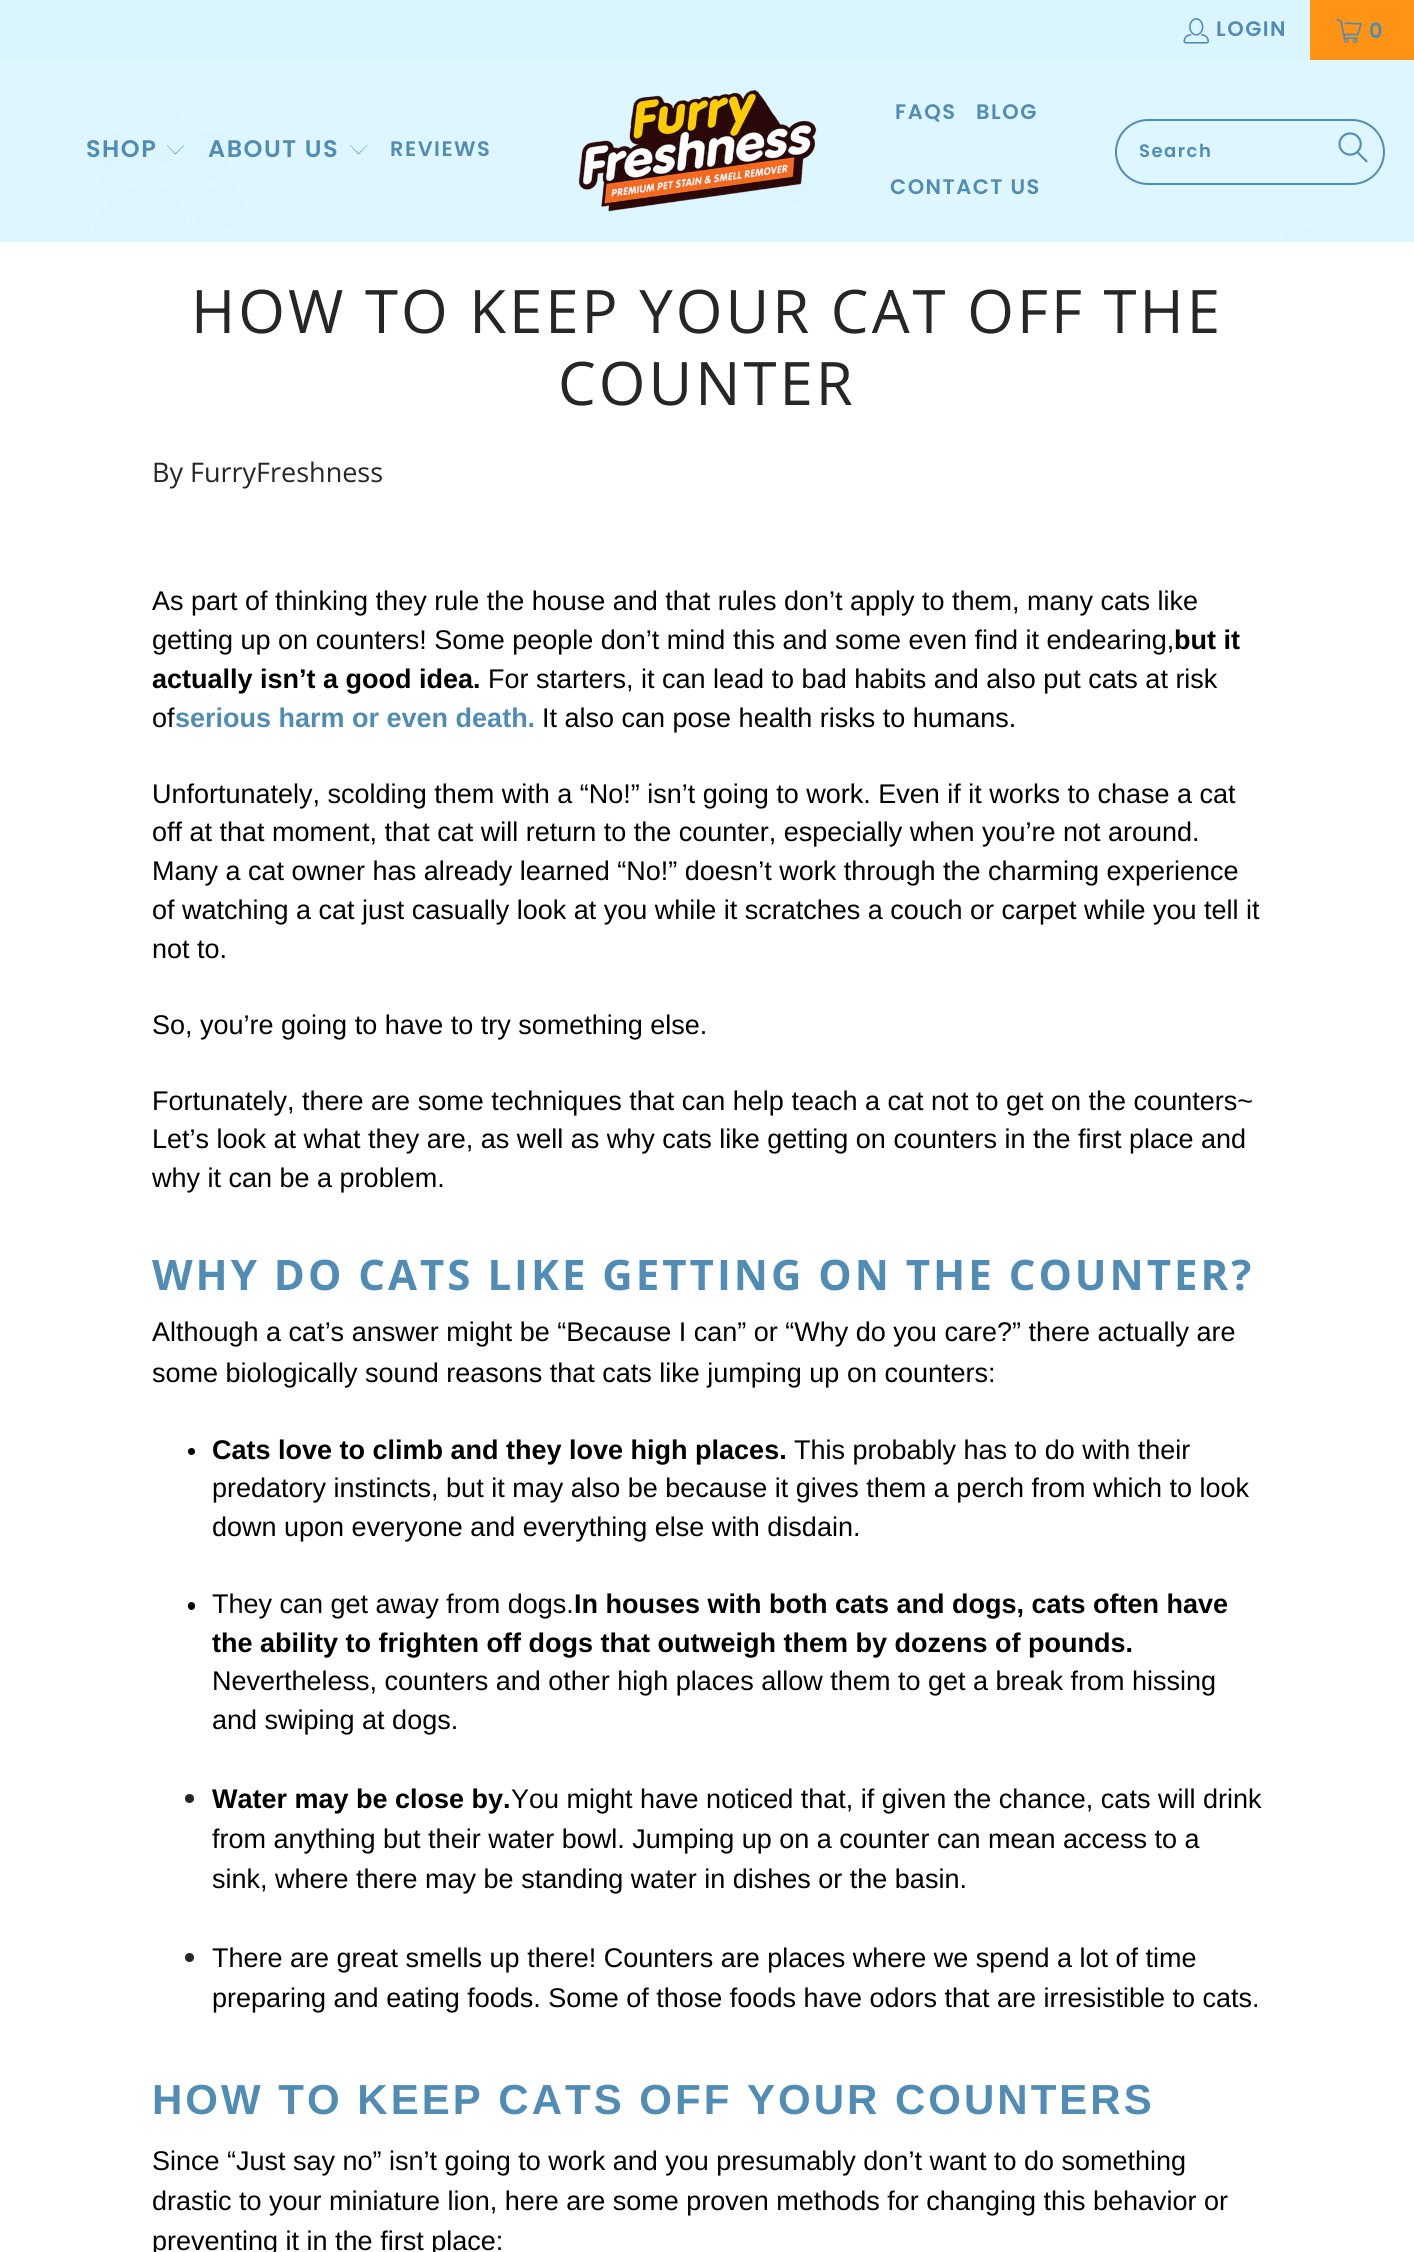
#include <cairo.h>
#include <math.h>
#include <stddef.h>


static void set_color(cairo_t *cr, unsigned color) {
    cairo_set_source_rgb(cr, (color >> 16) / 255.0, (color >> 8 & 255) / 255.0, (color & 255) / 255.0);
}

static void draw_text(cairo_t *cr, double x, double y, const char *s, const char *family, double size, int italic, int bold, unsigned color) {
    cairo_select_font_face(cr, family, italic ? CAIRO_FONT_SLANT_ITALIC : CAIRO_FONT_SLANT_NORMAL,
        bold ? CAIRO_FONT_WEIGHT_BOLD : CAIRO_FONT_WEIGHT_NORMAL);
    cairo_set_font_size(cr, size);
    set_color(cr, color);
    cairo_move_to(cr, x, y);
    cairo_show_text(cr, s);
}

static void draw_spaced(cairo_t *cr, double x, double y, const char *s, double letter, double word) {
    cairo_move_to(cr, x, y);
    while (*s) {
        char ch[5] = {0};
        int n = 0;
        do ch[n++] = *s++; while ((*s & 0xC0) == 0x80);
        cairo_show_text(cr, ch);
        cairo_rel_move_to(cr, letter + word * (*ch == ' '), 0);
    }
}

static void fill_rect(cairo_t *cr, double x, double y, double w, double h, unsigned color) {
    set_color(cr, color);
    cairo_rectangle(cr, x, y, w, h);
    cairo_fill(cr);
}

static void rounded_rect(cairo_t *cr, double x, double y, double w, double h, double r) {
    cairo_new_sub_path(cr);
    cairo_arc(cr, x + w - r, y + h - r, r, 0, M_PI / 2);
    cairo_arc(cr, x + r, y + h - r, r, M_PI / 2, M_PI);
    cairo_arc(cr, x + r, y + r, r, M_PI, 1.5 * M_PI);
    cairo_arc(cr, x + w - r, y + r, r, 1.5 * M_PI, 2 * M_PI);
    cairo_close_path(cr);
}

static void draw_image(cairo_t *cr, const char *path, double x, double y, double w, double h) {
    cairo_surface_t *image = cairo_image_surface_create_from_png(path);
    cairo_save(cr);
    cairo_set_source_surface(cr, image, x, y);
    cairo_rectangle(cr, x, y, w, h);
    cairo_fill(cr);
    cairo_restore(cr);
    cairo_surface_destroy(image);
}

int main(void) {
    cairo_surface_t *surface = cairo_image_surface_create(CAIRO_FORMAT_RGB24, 1414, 2252);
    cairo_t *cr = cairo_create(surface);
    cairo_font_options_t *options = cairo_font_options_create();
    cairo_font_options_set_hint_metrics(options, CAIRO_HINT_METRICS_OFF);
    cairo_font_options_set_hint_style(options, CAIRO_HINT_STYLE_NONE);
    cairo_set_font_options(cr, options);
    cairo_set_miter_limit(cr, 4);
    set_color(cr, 0xFFFFFF);
    cairo_paint(cr);
    draw_image(cr, "assets/img1.png", 90, 97, 1324, 145);
    fill_rect(cr, 0, 0, 1310, 60, 0xDBF5FF);
    draw_image(cr, "assets/img2.png", 1183, 18, 26, 26);
    cairo_select_font_face(cr, "Poppins SemiBold", CAIRO_FONT_SLANT_NORMAL, CAIRO_FONT_WEIGHT_NORMAL);
    cairo_set_font_size(cr, 21);
    set_color(cr, 0x518CB5);
    draw_spaced(cr, 1216, 36, "LOGIN", 1.5, 0);
    fill_rect(cr, 1310, 0, 104, 60, 0xFF9316);
    draw_image(cr, "assets/img3.png", 1336, 18, 26, 25);
    set_color(cr, 0x518CB5);
    draw_spaced(cr, 1369, 38, "0", 1.5, 0);
    cairo_set_source_rgba(cr, 0.859, 0.961, 1, 0.9);
    cairo_rectangle(cr, 0, 60, 1414, 182);
    cairo_fill(cr);
    cairo_set_font_size(cr, 24);
    set_color(cr, 0x518CB5);
    draw_spaced(cr, 86, 157, "SHOP", 1.5, 0);
    set_color(cr, 0x518CB6);
    cairo_new_path(cr);
    cairo_move_to(cr, 175.5, 154.5);
    cairo_line_to(cr, 166.5, 145);
    cairo_line_to(cr, 167, 145);
    cairo_line_to(cr, 175.5, 153.5);
    cairo_line_to(cr, 184, 145);
    cairo_line_to(cr, 184.5, 145);
    cairo_close_path(cr);
    cairo_fill(cr);
    set_color(cr, 0x518CB5);
    draw_spaced(cr, 208, 157, "ABOUT US", 1.5, 0);
    set_color(cr, 0x518CB6);
    cairo_new_path(cr);
    cairo_move_to(cr, 358.5, 154.5);
    cairo_line_to(cr, 349.5, 145);
    cairo_line_to(cr, 350, 145);
    cairo_line_to(cr, 358.5, 153.5);
    cairo_line_to(cr, 367, 145);
    cairo_line_to(cr, 367.5, 145);
    cairo_close_path(cr);
    cairo_fill(cr);
    cairo_set_font_size(cr, 21);
    set_color(cr, 0x518CB5);
    draw_spaced(cr, 390, 156, "REVIEWS", 1.5, 0);
    draw_image(cr, "assets/img4.png", 578, 89, 239, 123);
    draw_spaced(cr, 895, 119, "FAQS", 1.5, 0);
    draw_spaced(cr, 976, 119, "BLOG", 1.5, 0);
    draw_spaced(cr, 890, 194, "CONTACT US", 1.5, 0);
    rounded_rect(cr, 1116, 120, 268, 64, 32);
    set_color(cr, 0x518CB6);
    cairo_stroke(cr);
    cairo_set_font_size(cr, 18);
    set_color(cr, 0x518CB5);
    draw_spaced(cr, 1139, 157, "Search", 1.5, 0);
    draw_image(cr, "assets/img5.png", 1338, 132, 30, 31);
    cairo_select_font_face(cr, "Open Sans", CAIRO_FONT_SLANT_NORMAL, CAIRO_FONT_WEIGHT_NORMAL);
    cairo_set_font_size(cr, 60);
    set_color(cr, 0x262626);
    draw_spaced(cr, 191, 333, "HOW TO KEEP YOUR CAT OFF THE", 3, 0);
    draw_spaced(cr, 558, 405, "COUNTER", 3, 0);
    draw_text(cr, 152, 482, "By FurryFreshness", "Open Sans", 27, 0, 0, 0x262626);
    draw_text(cr, 152, 610, "As part of thinking they rule the house and that rules don’t apply to them, many cats like", "Liberation Sans", 27, 0, 0, 0x000000);
    draw_text(cr, 152, 649, "getting up on counters! Some people don’t mind this and some even find it endearing,", "Liberation Sans", 27, 0, 0, 0x000000);
    draw_text(cr, 1174, 649, "but it", "Liberation Sans", 27, 0, 1, 0x000000);
    draw_text(cr, 152, 688, "actually isn’t a good idea.", "Liberation Sans", 27, 0, 1, 0x000000);
    draw_text(cr, 488, 688, "For starters, it can lead to bad habits and also put cats at risk", "Liberation Sans", 27, 0, 0, 0x000000);
    draw_text(cr, 152, 727, "of", "Liberation Sans", 27, 0, 0, 0x000000);
    draw_text(cr, 175, 727, "serious harm or even death.", "Liberation Sans", 27, 0, 1, 0x518CB5);
    draw_text(cr, 542, 727, "It also can pose health risks to humans.", "Liberation Sans", 27, 0, 0, 0x000000);
    draw_text(cr, 152, 803, "Unfortunately, scolding them with a “No!” isn’t going to work. Even if it works to chase a cat", "Liberation Sans", 27, 0, 0, 0x000000);
    draw_text(cr, 152, 841, "off at that moment, that cat will return to the counter, especially when you’re not around.", "Liberation Sans", 27, 0, 0, 0x000000);
    draw_text(cr, 152, 880, "Many a cat owner has already learned “No!” doesn’t work through the charming experience", "Liberation Sans", 27, 0, 0, 0x000000);
    draw_text(cr, 152, 919, "of watching a cat just casually look at you while it scratches a couch or carpet while you tell it", "Liberation Sans", 27, 0, 0, 0x000000);
    draw_text(cr, 152, 958, "not to.", "Liberation Sans", 27, 0, 0, 0x000000);
    draw_text(cr, 152, 1034, "So, you’re going to have to try something else.", "Liberation Sans", 27, 0, 0, 0x000000);
    draw_text(cr, 152, 1110, "Fortunately, there are some techniques that can help teach a cat not to get on the counters~", "Liberation Sans", 27, 0, 0, 0x000000);
    draw_text(cr, 152, 1148, "Let’s look at what they are, as well as why cats like getting on counters in the first place and", "Liberation Sans", 27, 0, 0, 0x000000);
    draw_text(cr, 152, 1187, "why it can be a problem.", "Liberation Sans", 27, 0, 0, 0x000000);
    cairo_select_font_face(cr, "Open Sans", CAIRO_FONT_SLANT_NORMAL, CAIRO_FONT_WEIGHT_BOLD);
    cairo_set_font_size(cr, 42);
    set_color(cr, 0x518CB5);
    draw_spaced(cr, 152, 1290, "WHY DO CATS LIKE GETTING ON THE COUNTER?", 3, 0);
    draw_text(cr, 152, 1341, "Although a cat’s answer might be “Because I can” or “Why do you care?” there actually are", "Liberation Sans", 27, 0, 0, 0x000000);
    draw_text(cr, 152, 1382, "some biologically sound reasons that cats like jumping up on counters:", "Liberation Sans", 27, 0, 0, 0x000000);
    cairo_new_path(cr);
    cairo_arc(cr, 191.5, 1451.5, 3.5, 0, 2 * M_PI);
    cairo_fill(cr);
    draw_text(cr, 212, 1459, "Cats love to climb and they love high places.", "Liberation Sans", 27, 0, 1, 0x000000);
    draw_text(cr, 794, 1459, "This probably has to do with their", "Liberation Sans", 27, 0, 0, 0x000000);
    draw_text(cr, 212, 1497, "predatory instincts, but it may also be because it gives them a perch from which to look", "Liberation Sans", 27, 0, 0, 0x000000);
    draw_text(cr, 212, 1536, "down upon everyone and everything else with disdain.", "Liberation Sans", 27, 0, 0, 0x000000);
    rounded_rect(cr, 188, 1602, 7, 8, 3.5);
    cairo_fill(cr);
    draw_text(cr, 212, 1613, "They can get away from dogs.", "Liberation Sans", 27, 0, 0, 0x000000);
    draw_text(cr, 574, 1613, "In houses with both cats and dogs, cats often have", "Liberation Sans", 27, 0, 1, 0x000000);
    draw_text(cr, 212, 1652, "the ability to frighten off dogs that outweigh them by dozens of pounds.", "Liberation Sans", 27, 0, 1, 0x000000);
    draw_text(cr, 212, 1690, "Nevertheless, counters and other high places allow them to get a break from hissing", "Liberation Sans", 27, 0, 0, 0x000000);
    draw_text(cr, 212, 1729, "and swiping at dogs.", "Liberation Sans", 27, 0, 0, 0x000000);
    set_color(cr, 0x262626);
    cairo_new_path(cr);
    cairo_arc(cr, 189.5, 1798.5, 4.5, 0, 2 * M_PI);
    cairo_fill(cr);
    draw_text(cr, 212, 1808, "Water may be close by.", "Liberation Sans", 27, 0, 1, 0x000000);
    draw_text(cr, 511, 1808, "You might have noticed that, if given the chance, cats will drink", "Liberation Sans", 27, 0, 0, 0x000000);
    draw_text(cr, 212, 1848, "from anything but their water bowl. Jumping up on a counter can mean access to a", "Liberation Sans", 27, 0, 0, 0x000000);
    draw_text(cr, 212, 1888, "sink, where there may be standing water in dishes or the basin.", "Liberation Sans", 27, 0, 0, 0x000000);
    set_color(cr, 0x262626);
    cairo_new_path(cr);
    cairo_arc(cr, 189.5, 1957.5, 4.5, 0, 2 * M_PI);
    cairo_fill(cr);
    draw_text(cr, 212, 1967, "There are great smells up there! Counters are places where we spend a lot of time", "Liberation Sans", 27, 0, 0, 0x000000);
    draw_text(cr, 212, 2007, "preparing and eating foods. Some of those foods have odors that are irresistible to cats.", "Liberation Sans", 27, 0, 0, 0x000000);
    cairo_select_font_face(cr, "Liberation Sans", CAIRO_FONT_SLANT_NORMAL, CAIRO_FONT_WEIGHT_BOLD);
    cairo_set_font_size(cr, 42);
    set_color(cr, 0x518CB5);
    draw_spaced(cr, 152, 2114, "HOW TO KEEP CATS OFF YOUR COUNTERS", 3, 0);
    draw_text(cr, 152, 2170, "Since “Just say no” isn’t going to work and you presumably don’t want to do something", "Liberation Sans", 27, 0, 0, 0x000000);
    draw_text(cr, 152, 2210, "drastic to your miniature lion, here are some proven methods for changing this behavior or", "Liberation Sans", 27, 0, 0, 0x000000);
    draw_text(cr, 152, 2250, "preventing it in the first place:", "Liberation Sans", 27, 0, 0, 0x000000);
    cairo_surface_write_to_png(surface, "output.png");
    cairo_font_options_destroy(options);
    cairo_destroy(cr);
    cairo_surface_destroy(surface);
    return 0;
}
